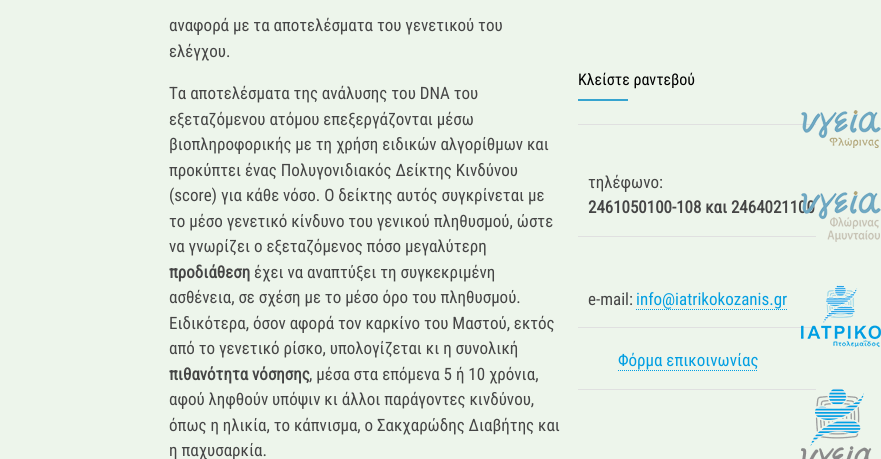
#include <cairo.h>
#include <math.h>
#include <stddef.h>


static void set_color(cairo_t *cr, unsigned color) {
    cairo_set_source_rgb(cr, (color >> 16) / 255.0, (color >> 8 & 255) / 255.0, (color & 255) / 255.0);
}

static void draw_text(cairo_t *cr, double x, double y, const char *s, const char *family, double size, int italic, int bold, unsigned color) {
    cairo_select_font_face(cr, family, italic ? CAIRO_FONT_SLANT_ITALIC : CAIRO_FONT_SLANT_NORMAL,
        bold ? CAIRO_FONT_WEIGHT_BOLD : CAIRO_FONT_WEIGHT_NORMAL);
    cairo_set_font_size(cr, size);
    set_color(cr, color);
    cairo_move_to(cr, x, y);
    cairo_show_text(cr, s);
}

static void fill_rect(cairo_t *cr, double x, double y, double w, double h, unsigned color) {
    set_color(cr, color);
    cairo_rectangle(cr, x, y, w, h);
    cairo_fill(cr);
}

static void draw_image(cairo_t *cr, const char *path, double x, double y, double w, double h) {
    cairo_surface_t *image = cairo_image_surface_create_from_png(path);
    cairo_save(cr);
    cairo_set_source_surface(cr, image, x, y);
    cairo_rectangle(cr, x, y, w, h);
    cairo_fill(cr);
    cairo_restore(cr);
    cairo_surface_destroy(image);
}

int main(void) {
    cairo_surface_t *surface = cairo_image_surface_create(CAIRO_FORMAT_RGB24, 881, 459);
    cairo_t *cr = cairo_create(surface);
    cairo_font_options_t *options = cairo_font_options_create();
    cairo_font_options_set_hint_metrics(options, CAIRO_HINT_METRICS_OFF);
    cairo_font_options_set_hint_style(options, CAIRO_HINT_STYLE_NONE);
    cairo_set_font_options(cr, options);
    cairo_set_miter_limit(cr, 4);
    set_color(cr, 0xEDF5EB);
    cairo_paint(cr);
    draw_text(cr, 169, 31, "αναφορά με τα αποτελέσματα του γενετικού του", "Roboto Condensed", 17, 0, 0, 0x454545);
    draw_text(cr, 169, 57, "ελέγχου.", "Roboto Condensed", 17, 0, 0, 0x454545);
    draw_text(cr, 169, 99, "Τα αποτελέσματα της ανάλυσης του DNA του", "Roboto Condensed", 17, 0, 0, 0x454545);
    draw_text(cr, 169, 125, "εξεταζόμενου ατόμου επεξεργάζονται μέσω", "Roboto Condensed", 17, 0, 0, 0x454545);
    draw_text(cr, 169, 150, "βιοπληροφορικής με τη χρήση ειδικών αλγορίθμων και", "Roboto Condensed", 17, 0, 0, 0x454545);
    draw_text(cr, 169, 176, "προκύπτει ένας Πολυγονιδιακός Δείκτης Κινδύνου", "Roboto Condensed", 17, 0, 0, 0x454545);
    draw_text(cr, 169, 201, "(score) για κάθε νόσο. Ο δείκτης αυτός συγκρίνεται με", "Roboto Condensed", 17, 0, 0, 0x454545);
    draw_text(cr, 169, 227, "το μέσο γενετικό κίνδυνο του γενικού πληθυσμού, ώστε", "Roboto Condensed", 17, 0, 0, 0x454545);
    draw_text(cr, 169, 252, "να γνωρίζει ο εξεταζόμενος πόσο μεγαλύτερη", "Roboto Condensed", 17, 0, 0, 0x454545);
    draw_text(cr, 169, 278, "προδιάθεση", "Roboto Condensed", 17, 0, 1, 0x454545);
    draw_text(cr, 254, 278, "έχει να αναπτύξει τη συγκεκριμένη", "Roboto Condensed", 17, 0, 0, 0x454545);
    draw_text(cr, 169, 303, "ασθένεια, σε σχέση με το μέσο όρο του πληθυσμού.", "Roboto Condensed", 17, 0, 0, 0x454545);
    draw_text(cr, 169, 329, "Ειδικότερα, όσον αφορά τον καρκίνο του Μαστού, εκτός", "Roboto Condensed", 17, 0, 0, 0x454545);
    draw_text(cr, 169, 354, "από το γενετικό ρίσκο, υπολογίζεται κι η συνολική", "Roboto Condensed", 17, 0, 0, 0x454545);
    draw_text(cr, 169, 380, "πιθανότητα νόσησης", "Roboto Condensed", 17, 0, 1, 0x454545);
    draw_text(cr, 309, 380, ", μέσα στα επόμενα 5 ή 10 χρόνια,", "Roboto Condensed", 17, 0, 0, 0x454545);
    draw_text(cr, 169, 405, "αφού ληφθούν υπόψιν κι άλλοι παράγοντες κινδύνου,", "Roboto Condensed", 17, 0, 0, 0x454545);
    draw_text(cr, 169, 431, "όπως η ηλικία, το κάπνισμα, ο Σακχαρώδης Διαβήτης και", "Roboto Condensed", 17, 0, 0, 0x454545);
    draw_text(cr, 169, 456, "η παχυσαρκία.", "Roboto Condensed", 17, 0, 0, 0x454545);
    draw_text(cr, 578, 85, "Κλείστε ραντεβού", "Roboto Condensed", 16, 0, 0, 0x000000);
    fill_rect(cr, 578, 99, 50, 2, 0x36A4CF);
    fill_rect(cr, 578, 124, 238, 1, 0xE0E0E0);
    fill_rect(cr, 578, 236, 238, 1, 0xE0E0E0);
    draw_text(cr, 588, 188, "τηλέφωνο:", "Roboto Condensed", 17, 0, 0, 0x454545);
    draw_text(cr, 588, 213, "2461050100-108 και 2464021100", "Roboto Condensed", 17, 0, 1, 0x454545);
    fill_rect(cr, 578, 327, 238, 1, 0xE0E0E0);
    draw_text(cr, 588, 305, "e-mail:", "Roboto Condensed", 17, 0, 0, 0x454545);
    draw_text(cr, 636, 305, "info@iatrikokozanis.gr", "Roboto Condensed", 17, 0, 0, 0x019EE2);
    cairo_new_path(cr);
    cairo_move_to(cr, 636, 309.5);
    cairo_line_to(cr, 788, 309.5);
    cairo_set_line_width(cr, 1);
    cairo_set_dash(cr, (double[]){1, 1}, 2, 0);
    cairo_stroke(cr);
    fill_rect(cr, 578, 389, 238, 1, 0xE0E0E0);
    draw_text(cr, 618, 366, "Φόρμα επικοινωνίας", "Roboto Condensed", 17, 0, 0, 0x019EE2);
    cairo_new_path(cr);
    cairo_move_to(cr, 618, 370.5);
    cairo_line_to(cr, 758, 370.5);
    cairo_stroke(cr);
    draw_image(cr, "assets/img1.png", 801, 110, 80, 38);
    draw_image(cr, "assets/img2.png", 801, 191, 80, 51);
    draw_image(cr, "assets/img3.png", 801, 285, 80, 62);
    draw_image(cr, "assets/img4.png", 801, 388, 71, 71);
    cairo_surface_write_to_png(surface, "output.png");
    cairo_font_options_destroy(options);
    cairo_destroy(cr);
    cairo_surface_destroy(surface);
    return 0;
}
